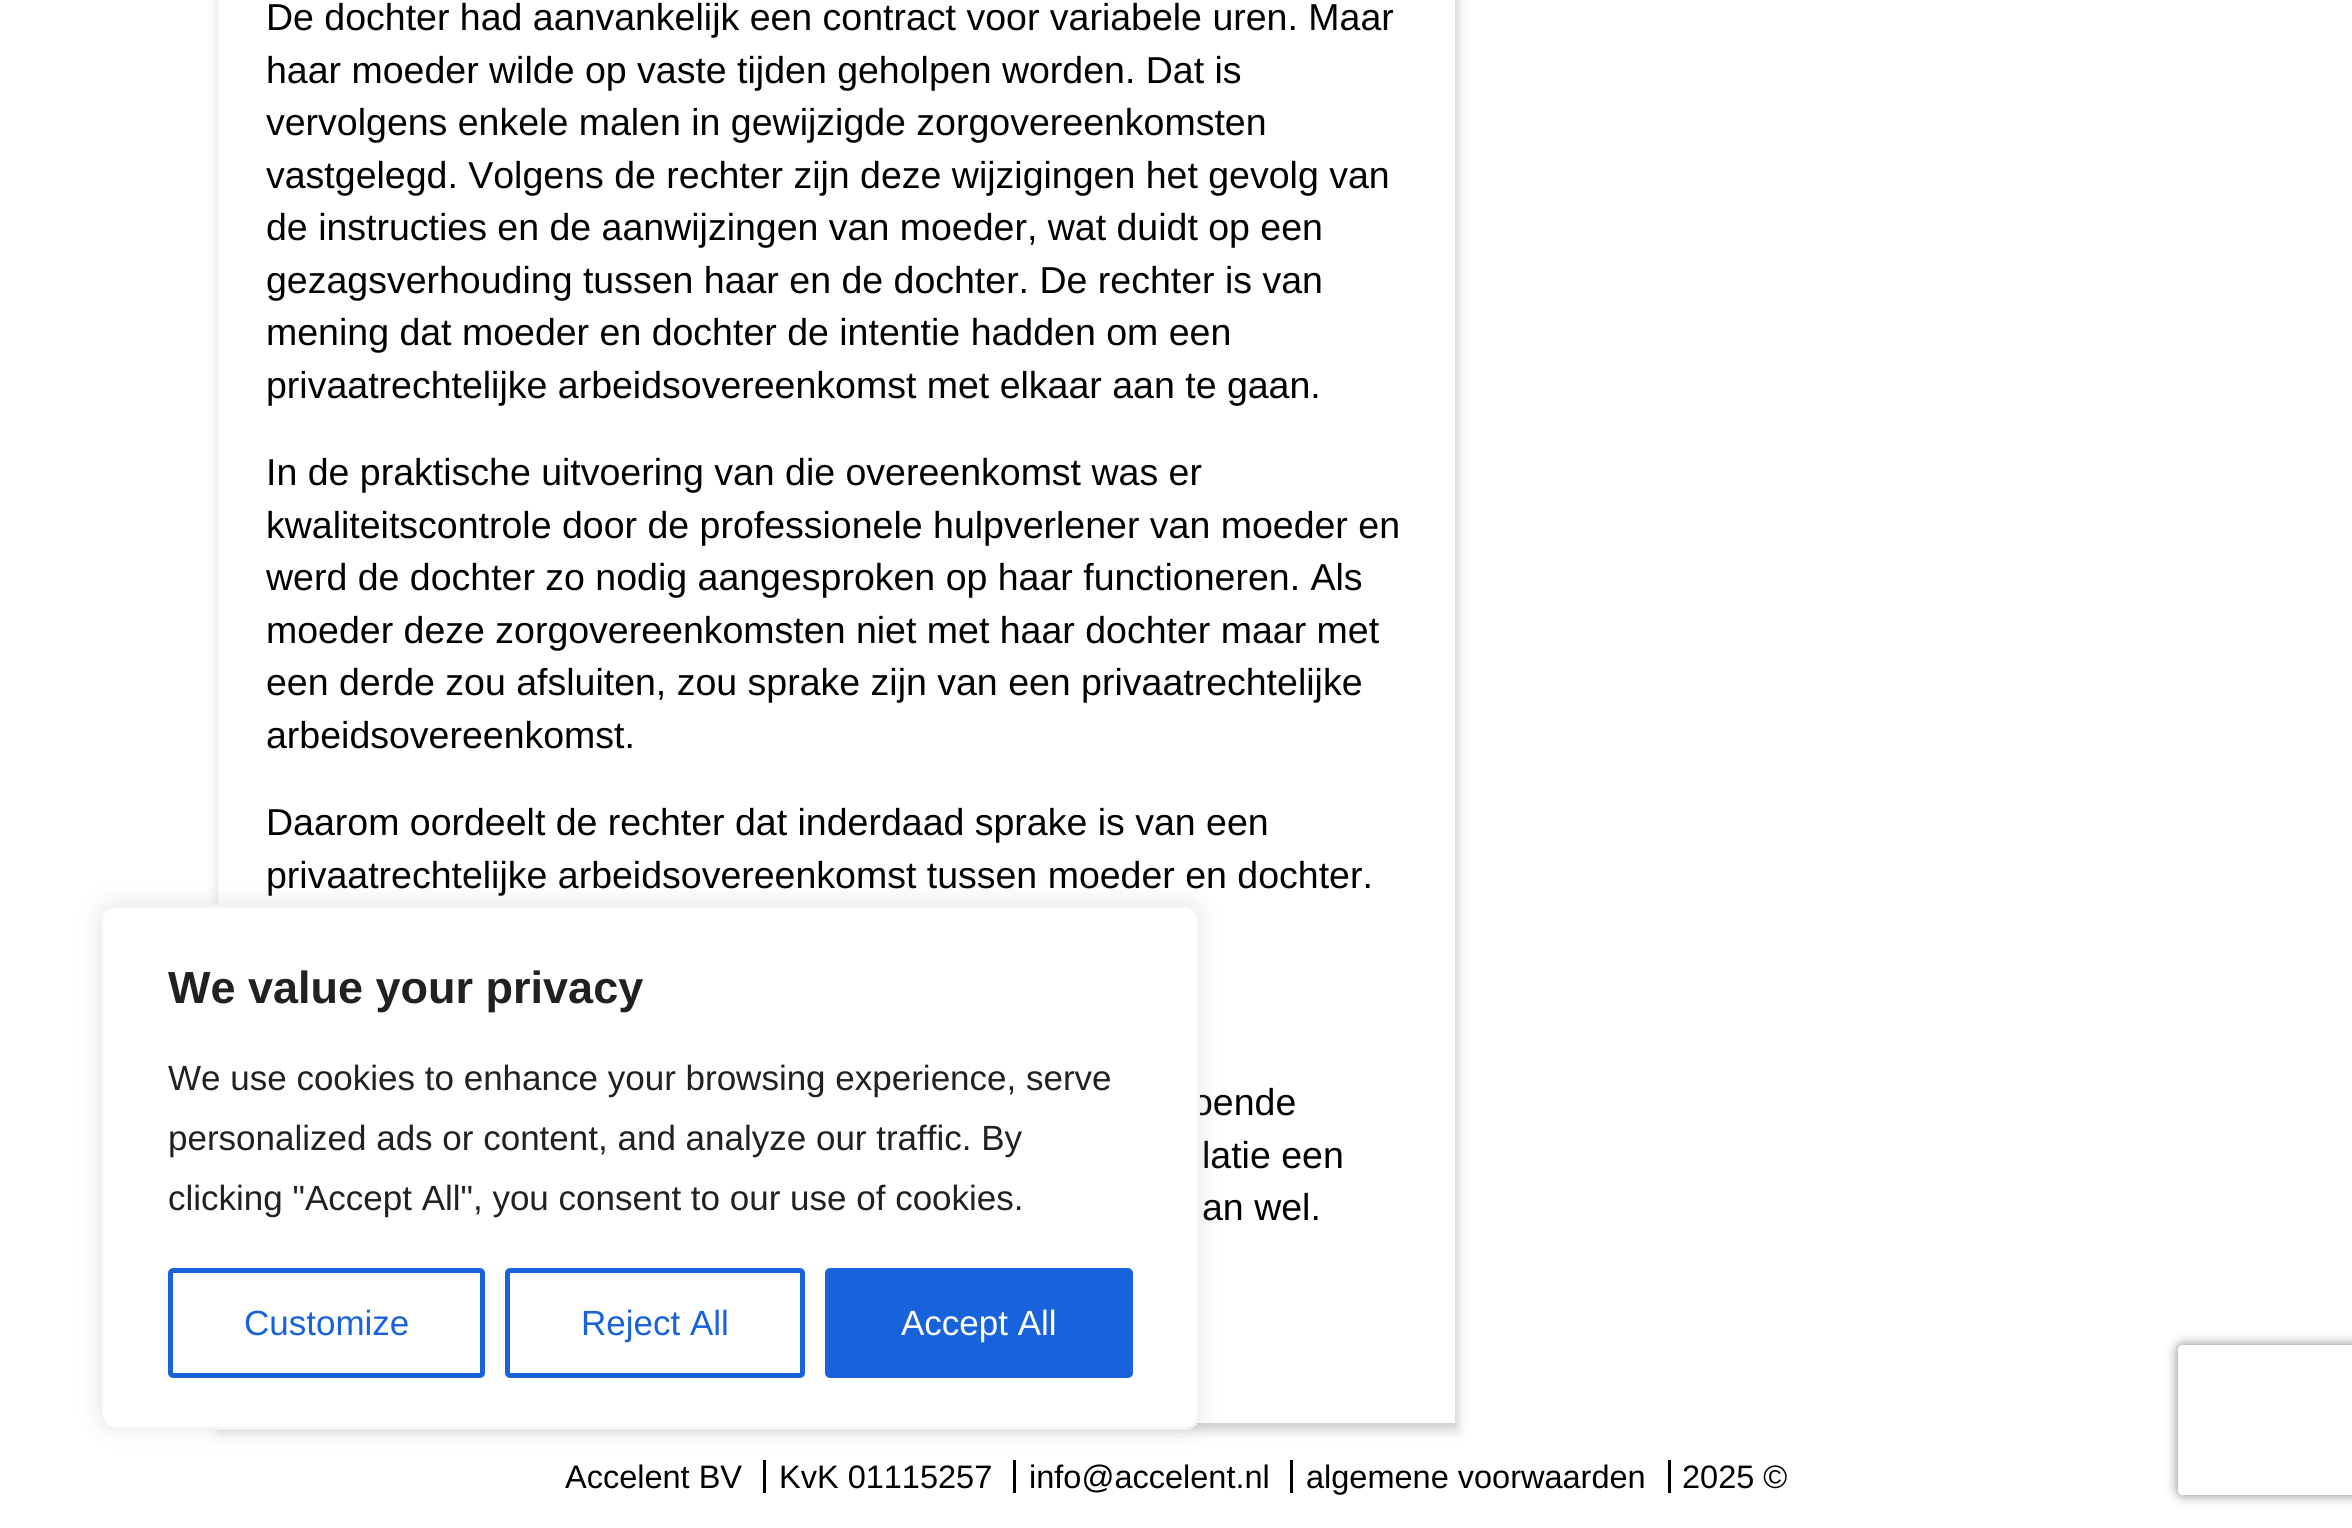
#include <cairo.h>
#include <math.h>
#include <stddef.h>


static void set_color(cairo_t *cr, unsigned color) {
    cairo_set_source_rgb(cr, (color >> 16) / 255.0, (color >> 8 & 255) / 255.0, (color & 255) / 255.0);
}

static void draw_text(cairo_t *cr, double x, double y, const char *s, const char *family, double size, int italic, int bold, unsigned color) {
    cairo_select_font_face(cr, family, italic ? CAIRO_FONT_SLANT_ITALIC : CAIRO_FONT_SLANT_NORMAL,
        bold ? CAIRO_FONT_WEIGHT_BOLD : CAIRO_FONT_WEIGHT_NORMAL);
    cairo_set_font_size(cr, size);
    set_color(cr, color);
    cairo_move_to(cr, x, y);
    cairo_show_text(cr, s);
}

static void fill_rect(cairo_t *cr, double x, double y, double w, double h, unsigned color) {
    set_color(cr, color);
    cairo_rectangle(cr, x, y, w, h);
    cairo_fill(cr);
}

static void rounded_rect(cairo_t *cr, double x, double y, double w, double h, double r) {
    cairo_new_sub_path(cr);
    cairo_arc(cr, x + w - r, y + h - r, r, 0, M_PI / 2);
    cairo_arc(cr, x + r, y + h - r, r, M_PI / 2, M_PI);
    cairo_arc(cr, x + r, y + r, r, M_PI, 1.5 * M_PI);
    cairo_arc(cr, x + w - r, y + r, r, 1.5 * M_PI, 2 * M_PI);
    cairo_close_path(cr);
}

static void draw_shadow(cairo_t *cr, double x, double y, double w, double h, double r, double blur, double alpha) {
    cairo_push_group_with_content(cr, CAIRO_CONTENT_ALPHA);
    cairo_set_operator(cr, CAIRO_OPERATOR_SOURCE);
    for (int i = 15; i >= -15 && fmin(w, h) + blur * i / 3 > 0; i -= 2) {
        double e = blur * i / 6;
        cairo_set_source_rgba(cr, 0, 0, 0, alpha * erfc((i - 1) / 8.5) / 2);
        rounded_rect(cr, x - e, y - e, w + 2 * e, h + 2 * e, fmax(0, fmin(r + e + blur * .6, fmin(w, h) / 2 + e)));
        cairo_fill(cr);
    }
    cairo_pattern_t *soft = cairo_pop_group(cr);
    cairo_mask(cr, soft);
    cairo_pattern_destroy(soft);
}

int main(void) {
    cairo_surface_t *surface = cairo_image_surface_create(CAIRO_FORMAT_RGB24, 2352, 1528);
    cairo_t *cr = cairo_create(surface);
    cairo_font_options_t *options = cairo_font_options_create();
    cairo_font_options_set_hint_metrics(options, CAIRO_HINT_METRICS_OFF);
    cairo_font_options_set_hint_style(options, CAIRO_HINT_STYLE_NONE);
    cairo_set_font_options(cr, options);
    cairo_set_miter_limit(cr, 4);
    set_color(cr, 0xFFFFFF);
    cairo_paint(cr);
    cairo_save(cr);
    cairo_set_fill_rule(cr, CAIRO_FILL_RULE_EVEN_ODD);
    cairo_new_path(cr);
    cairo_move_to(cr, 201, 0);
    cairo_line_to(cr, 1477, 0);
    cairo_line_to(cr, 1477, 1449);
    cairo_line_to(cr, 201, 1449);
    cairo_close_path(cr);
    cairo_move_to(cr, 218, -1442);
    cairo_line_to(cr, 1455, -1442);
    cairo_line_to(cr, 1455, 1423);
    cairo_line_to(cr, 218, 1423);
    cairo_close_path(cr);
    cairo_clip(cr);
    set_color(cr, 0x000000);
    draw_shadow(cr, 220, -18, 1238, 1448, 0, 6, 0.2);
    cairo_restore(cr);
    cairo_set_source_rgba(cr, 1, 1, 1, 0.93);
    cairo_rectangle(cr, 218, 1422, 1237, 1);
    cairo_fill(cr);
    draw_text(cr, 266, 30, "De dochter had aanvankelijk een contract voor variabele uren. Maar", "Liberation Sans", 37.5, 0, 0, 0x000000);
    draw_text(cr, 266, 83, "haar moeder wilde op vaste tijden geholpen worden. Dat is", "Liberation Sans", 37.5, 0, 0, 0x000000);
    draw_text(cr, 266, 135, "vervolgens enkele malen in gewijzigde zorgovereenkomsten", "Liberation Sans", 37.5, 0, 0, 0x000000);
    draw_text(cr, 266, 188, "vastgelegd. Volgens de rechter zijn deze wijzigingen het gevolg van", "Liberation Sans", 37.5, 0, 0, 0x000000);
    draw_text(cr, 266, 240, "de instructies en de aanwijzingen van moeder, wat duidt op een", "Liberation Sans", 37.5, 0, 0, 0x000000);
    draw_text(cr, 266, 293, "gezagsverhouding tussen haar en de dochter. De rechter is van", "Liberation Sans", 37.5, 0, 0, 0x000000);
    draw_text(cr, 266, 345, "mening dat moeder en dochter de intentie hadden om een", "Liberation Sans", 37.5, 0, 0, 0x000000);
    draw_text(cr, 266, 398, "privaatrechtelijke arbeidsovereenkomst met elkaar aan te gaan.", "Liberation Sans", 37.5, 0, 0, 0x000000);
    draw_text(cr, 266, 485, "In de praktische uitvoering van die overeenkomst was er", "Liberation Sans", 37.5, 0, 0, 0x000000);
    draw_text(cr, 266, 538, "kwaliteitscontrole door de professionele hulpverlener van moeder en", "Liberation Sans", 37.5, 0, 0, 0x000000);
    draw_text(cr, 266, 590, "werd de dochter zo nodig aangesproken op haar functioneren. Als", "Liberation Sans", 37.5, 0, 0, 0x000000);
    draw_text(cr, 266, 643, "moeder deze zorgovereenkomsten niet met haar dochter maar met", "Liberation Sans", 37.5, 0, 0, 0x000000);
    draw_text(cr, 266, 695, "een derde zou afsluiten, zou sprake zijn van een privaatrechtelijke", "Liberation Sans", 37.5, 0, 0, 0x000000);
    draw_text(cr, 266, 748, "arbeidsovereenkomst.", "Liberation Sans", 37.5, 0, 0, 0x000000);
    draw_text(cr, 266, 835, "Daarom oordeelt de rechter dat inderdaad sprake is van een", "Liberation Sans", 37.5, 0, 0, 0x000000);
    draw_text(cr, 266, 888, "privaatrechtelijke arbeidsovereenkomst tussen moeder en dochter.", "Liberation Sans", 37.5, 0, 0, 0x000000);
    draw_text(cr, 1192, 1115, "oende", "Liberation Sans", 37.5, 0, 0, 0x000000);
    draw_text(cr, 1202, 1168, "latie een", "Liberation Sans", 37.5, 0, 0, 0x000000);
    draw_text(cr, 1202, 1220, "an wel.", "Liberation Sans", 37.5, 0, 0, 0x000000);
    draw_text(cr, 565, 1488, "Accelent BV", "Liberation Sans", 32.5, 0, 0, 0x000000);
    fill_rect(cr, 763, 1460, 3, 33, 0x000000);
    draw_text(cr, 779, 1488, "KvK 01115257", "Liberation Sans", 32.5, 0, 0, 0x000000);
    fill_rect(cr, 1013, 1460, 3, 33, 0x000000);
    draw_text(cr, 1029, 1488, "info@accelent.nl", "Liberation Sans", 32.5, 0, 0, 0x000000);
    fill_rect(cr, 1290, 1460, 3, 33, 0x000000);
    draw_text(cr, 1306, 1488, "algemene voorwaarden", "Liberation Sans", 32.5, 0, 0, 0x000000);
    fill_rect(cr, 1668, 1460, 3, 33, 0x000000);
    draw_text(cr, 1682, 1488, "2025 ©", "Liberation Sans", 32.5, 0, 0, 0x000000);
    set_color(cr, 0xACABAB);
    draw_shadow(cr, 100, 903, 1100, 525, 15, 12.5, 0.3);
    set_color(cr, 0xFFFFFF);
    rounded_rect(cr, 101.5, 906.5, 1097, 522, 13.5);
    cairo_fill_preserve(cr);
    set_color(cr, 0xF4F4F4);
    cairo_set_line_width(cr, 3);
    cairo_stroke(cr);
    draw_text(cr, 168, 1003, "We value your privacy", "Liberation Sans", 45, 0, 1, 0x212121);
    draw_text(cr, 168, 1090, "We use cookies to enhance your browsing experience, serve", "Liberation Sans", 35, 0, 0, 0x212121);
    draw_text(cr, 168, 1150, "personalized ads or content, and analyze our traffic. By", "Liberation Sans", 35, 0, 0, 0x212121);
    draw_text(cr, 168, 1210, "clicking \"Accept All\", you consent to our use of cookies.", "Liberation Sans", 35, 0, 0, 0x212121);
    rounded_rect(cr, 170.5, 1270.5, 312, 105, 2.5);
    set_color(cr, 0x1863DC);
    cairo_set_line_width(cr, 5);
    cairo_stroke(cr);
    draw_text(cr, 244, 1335, "Customize", "Liberation Sans", 35, 0, 0, 0x1863DC);
    rounded_rect(cr, 507.5, 1270.5, 295, 105, 2.5);
    cairo_stroke(cr);
    draw_text(cr, 581, 1335, "Reject All", "Liberation Sans", 35, 0, 0, 0x1863DC);
    rounded_rect(cr, 827.5, 1270.5, 303, 105, 2.5);
    cairo_fill_preserve(cr);
    cairo_stroke(cr);
    draw_text(cr, 901, 1335, "Accept All", "Liberation Sans", 35, 0, 0, 0xFFFFFF);
    cairo_save(cr);
    cairo_set_fill_rule(cr, CAIRO_FILL_RULE_EVEN_ODD);
    cairo_new_path(cr);
    cairo_move_to(cr, 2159, 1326);
    cairo_line_to(cr, 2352, 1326);
    cairo_line_to(cr, 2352, 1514);
    cairo_line_to(cr, 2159, 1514);
    cairo_close_path(cr);
    cairo_move_to(cr, 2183, 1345);
    cairo_line_to(cr, 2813, 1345);
    cairo_curve_to(cr, 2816, 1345, 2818, 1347, 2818, 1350);
    cairo_line_to(cr, 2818, 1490);
    cairo_curve_to(cr, 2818, 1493, 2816, 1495, 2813, 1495);
    cairo_line_to(cr, 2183, 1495);
    cairo_curve_to(cr, 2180, 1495, 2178, 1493, 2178, 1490);
    cairo_line_to(cr, 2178, 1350);
    cairo_curve_to(cr, 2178, 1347, 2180, 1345, 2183, 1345);
    cairo_close_path(cr);
    cairo_clip(cr);
    set_color(cr, 0x808080);
    draw_shadow(cr, 2178, 1345, 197, 150, 5, 6, 1);
    cairo_restore(cr);
    cairo_surface_write_to_png(surface, "output.png");
    cairo_font_options_destroy(options);
    cairo_destroy(cr);
    cairo_surface_destroy(surface);
    return 0;
}
